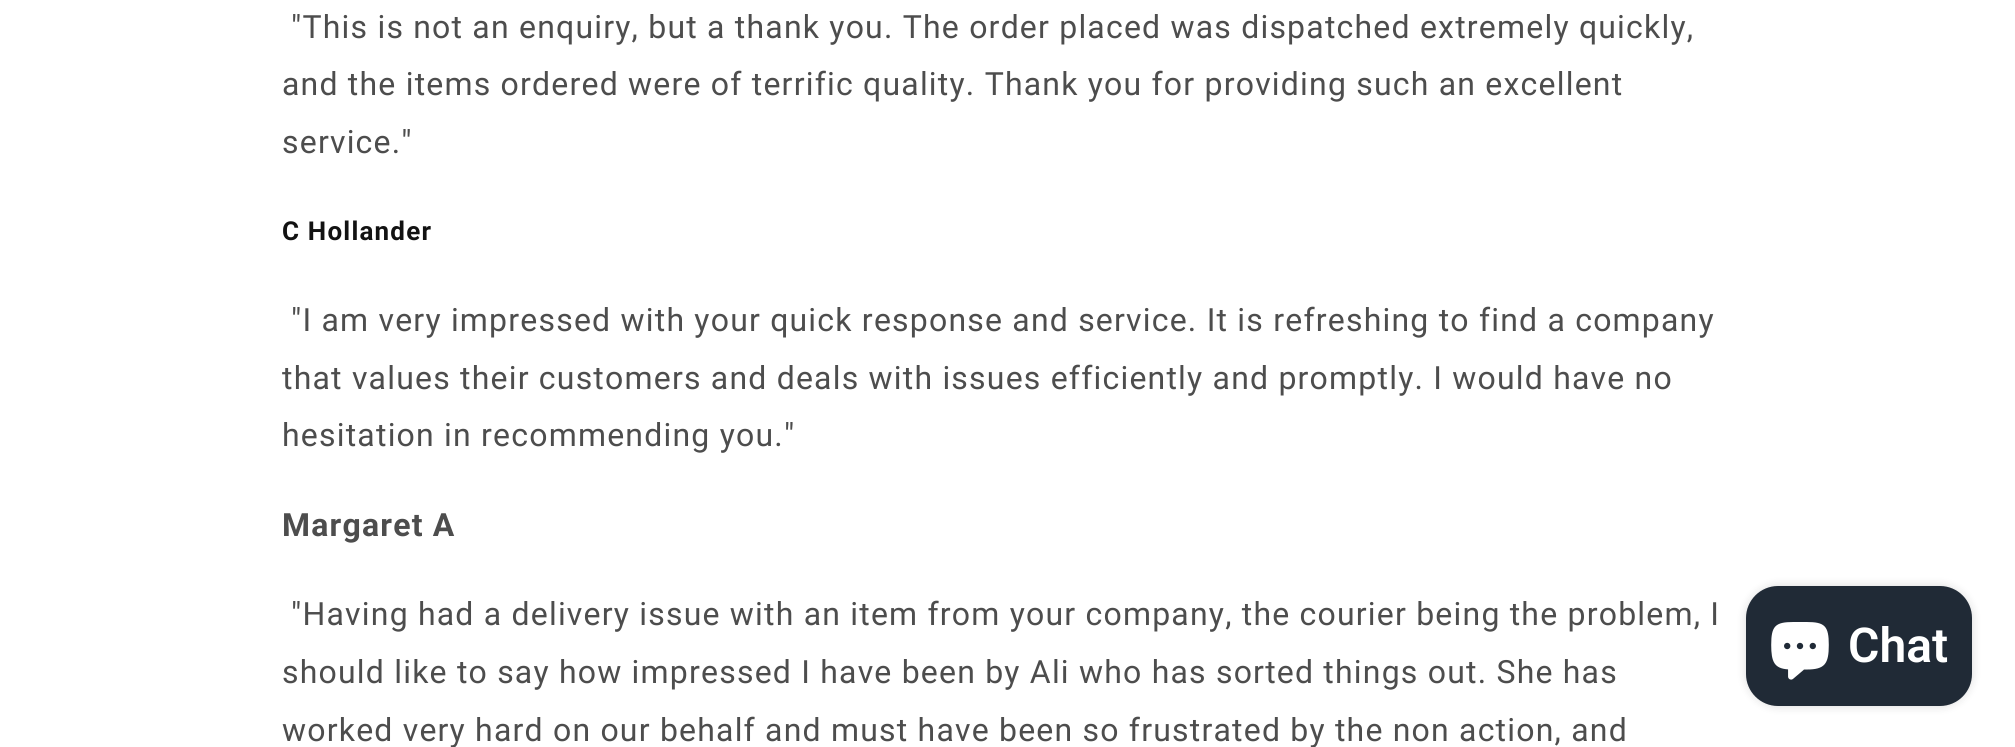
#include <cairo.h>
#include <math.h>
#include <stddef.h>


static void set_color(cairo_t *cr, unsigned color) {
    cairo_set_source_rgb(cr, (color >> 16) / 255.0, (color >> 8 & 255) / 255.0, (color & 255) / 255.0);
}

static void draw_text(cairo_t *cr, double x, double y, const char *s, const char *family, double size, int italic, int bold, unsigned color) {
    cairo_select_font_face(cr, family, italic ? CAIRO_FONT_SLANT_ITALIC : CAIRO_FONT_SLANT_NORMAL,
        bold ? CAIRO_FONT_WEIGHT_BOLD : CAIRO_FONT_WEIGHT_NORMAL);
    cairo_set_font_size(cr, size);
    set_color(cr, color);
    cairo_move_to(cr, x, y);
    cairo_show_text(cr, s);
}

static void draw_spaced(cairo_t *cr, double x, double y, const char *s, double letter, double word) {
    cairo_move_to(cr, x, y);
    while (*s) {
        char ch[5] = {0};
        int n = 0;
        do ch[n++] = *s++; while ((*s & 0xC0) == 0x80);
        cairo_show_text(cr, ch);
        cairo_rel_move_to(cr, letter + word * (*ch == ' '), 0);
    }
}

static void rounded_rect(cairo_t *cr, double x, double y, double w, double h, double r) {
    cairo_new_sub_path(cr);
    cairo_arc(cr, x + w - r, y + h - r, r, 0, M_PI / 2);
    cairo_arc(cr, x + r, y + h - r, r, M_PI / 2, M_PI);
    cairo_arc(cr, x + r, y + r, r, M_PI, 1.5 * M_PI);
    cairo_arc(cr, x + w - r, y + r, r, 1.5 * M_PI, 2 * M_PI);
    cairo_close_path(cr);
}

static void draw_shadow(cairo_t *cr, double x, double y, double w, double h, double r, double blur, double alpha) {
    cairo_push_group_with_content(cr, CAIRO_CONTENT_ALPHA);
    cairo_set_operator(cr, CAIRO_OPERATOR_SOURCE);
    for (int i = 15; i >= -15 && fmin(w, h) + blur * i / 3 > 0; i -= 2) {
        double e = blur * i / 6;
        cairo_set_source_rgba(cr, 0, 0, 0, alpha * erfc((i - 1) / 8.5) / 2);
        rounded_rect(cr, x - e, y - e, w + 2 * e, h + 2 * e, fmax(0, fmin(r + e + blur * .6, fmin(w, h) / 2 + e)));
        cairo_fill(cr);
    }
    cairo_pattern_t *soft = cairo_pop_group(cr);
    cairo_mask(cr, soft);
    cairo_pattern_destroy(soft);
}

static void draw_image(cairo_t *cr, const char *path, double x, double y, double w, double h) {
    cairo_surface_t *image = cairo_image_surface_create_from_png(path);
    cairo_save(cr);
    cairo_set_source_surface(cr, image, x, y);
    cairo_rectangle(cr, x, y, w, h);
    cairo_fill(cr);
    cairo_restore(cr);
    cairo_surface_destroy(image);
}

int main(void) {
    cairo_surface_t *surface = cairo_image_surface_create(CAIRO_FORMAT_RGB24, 2015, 747);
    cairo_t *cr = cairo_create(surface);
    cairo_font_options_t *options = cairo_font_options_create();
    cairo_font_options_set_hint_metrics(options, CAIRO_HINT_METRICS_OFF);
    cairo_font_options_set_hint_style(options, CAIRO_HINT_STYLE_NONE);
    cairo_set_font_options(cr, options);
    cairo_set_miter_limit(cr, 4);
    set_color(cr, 0xFFFFFF);
    cairo_paint(cr);
    cairo_select_font_face(cr, "Roboto", CAIRO_FONT_SLANT_NORMAL, CAIRO_FONT_WEIGHT_NORMAL);
    cairo_set_font_size(cr, 32);
    set_color(cr, 0x4D4D4D);
    draw_spaced(cr, 291, 38, "\"This is not an enquiry, but a thank you. The order placed was dispatched extremely quickly,", 1.2, 0);
    draw_spaced(cr, 282, 95, "and the items ordered were of terrific quality. Thank you for providing such an excellent", 1.2, 0);
    draw_spaced(cr, 282, 153, "service.\"", 1.2, 0);
    cairo_select_font_face(cr, "Roboto", CAIRO_FONT_SLANT_NORMAL, CAIRO_FONT_WEIGHT_BOLD);
    cairo_set_font_size(cr, 26);
    set_color(cr, 0x121212);
    draw_spaced(cr, 282, 240, "C Hollander", 1.2, 0);
    cairo_select_font_face(cr, "Roboto", CAIRO_FONT_SLANT_NORMAL, CAIRO_FONT_WEIGHT_NORMAL);
    cairo_set_font_size(cr, 32);
    set_color(cr, 0x4D4D4D);
    draw_spaced(cr, 291, 331, "\"I am very impressed with your quick response and service. It is refreshing to find a company", 1.2, 0);
    draw_spaced(cr, 282, 389, "that values their customers and deals with issues efficiently and promptly. I would have no", 1.2, 0);
    draw_spaced(cr, 282, 446, "hesitation in recommending you.\"", 1.2, 0);
    cairo_select_font_face(cr, "Roboto", CAIRO_FONT_SLANT_NORMAL, CAIRO_FONT_WEIGHT_BOLD);
    draw_spaced(cr, 282, 536, "Margaret A", 1.2, 0);
    cairo_select_font_face(cr, "Roboto", CAIRO_FONT_SLANT_NORMAL, CAIRO_FONT_WEIGHT_NORMAL);
    draw_spaced(cr, 291, 625, "\"Having had a delivery issue with an item from your company, the courier being the problem, I", 1.2, 0);
    draw_spaced(cr, 282, 683, "should like to say how impressed I have been by Ali who has sorted things out. She has", 1.2, 0);
    draw_spaced(cr, 282, 741, "worked very hard on our behalf and must have been so frustrated by the non action, and", 1.2, 0);
    set_color(cr, 0x000000);
    draw_shadow(cr, 1746, 586, 226, 120, 32, 5, 0.15);
    set_color(cr, 0x202A36);
    rounded_rect(cr, 1746, 586, 226, 120, 32);
    cairo_fill(cr);
    draw_image(cr, "assets/img1.png", 1771, 622, 58, 58);
    draw_text(cr, 1848, 662, "Chat", "Roboto SemiBold", 48, 0, 0, 0xFFFFFF);
    cairo_surface_write_to_png(surface, "output.png");
    cairo_font_options_destroy(options);
    cairo_destroy(cr);
    cairo_surface_destroy(surface);
    return 0;
}
